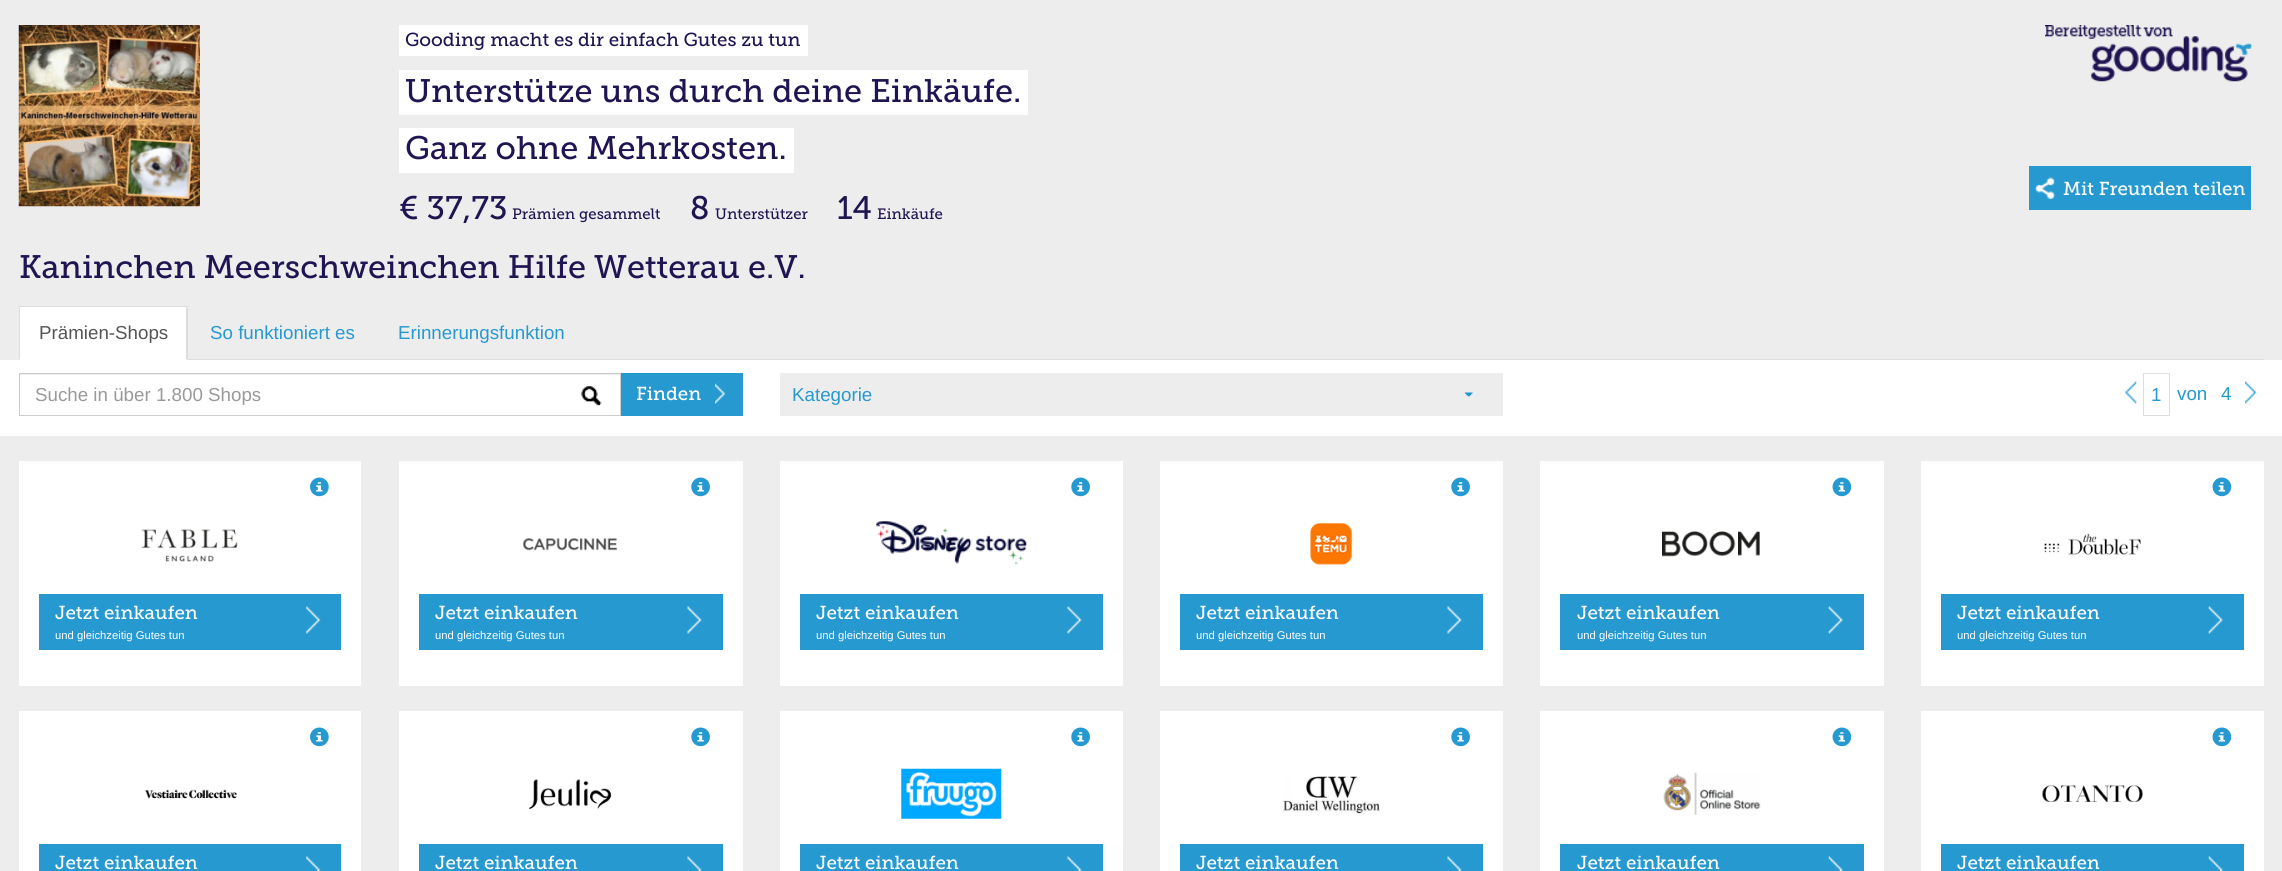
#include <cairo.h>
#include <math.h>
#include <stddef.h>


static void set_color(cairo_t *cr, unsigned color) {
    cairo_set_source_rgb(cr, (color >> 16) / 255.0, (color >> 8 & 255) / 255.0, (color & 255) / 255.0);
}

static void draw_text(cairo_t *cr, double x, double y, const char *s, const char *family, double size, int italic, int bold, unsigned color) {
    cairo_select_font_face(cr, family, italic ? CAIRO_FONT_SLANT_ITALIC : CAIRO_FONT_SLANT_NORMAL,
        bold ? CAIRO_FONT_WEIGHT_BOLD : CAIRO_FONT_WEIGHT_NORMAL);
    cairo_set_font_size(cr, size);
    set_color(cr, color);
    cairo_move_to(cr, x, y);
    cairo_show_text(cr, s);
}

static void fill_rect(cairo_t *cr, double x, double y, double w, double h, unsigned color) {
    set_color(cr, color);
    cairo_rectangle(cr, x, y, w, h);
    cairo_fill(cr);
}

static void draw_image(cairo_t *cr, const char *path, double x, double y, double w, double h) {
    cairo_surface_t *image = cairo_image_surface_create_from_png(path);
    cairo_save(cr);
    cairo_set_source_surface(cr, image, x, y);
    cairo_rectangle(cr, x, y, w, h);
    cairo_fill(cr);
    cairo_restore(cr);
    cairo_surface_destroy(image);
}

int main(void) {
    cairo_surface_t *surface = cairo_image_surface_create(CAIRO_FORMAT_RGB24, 2282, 871);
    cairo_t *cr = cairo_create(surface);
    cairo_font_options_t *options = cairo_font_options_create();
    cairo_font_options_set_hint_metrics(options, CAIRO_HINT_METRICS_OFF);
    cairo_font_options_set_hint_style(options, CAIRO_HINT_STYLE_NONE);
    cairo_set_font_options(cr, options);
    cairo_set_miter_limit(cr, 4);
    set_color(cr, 0xEDEDED);
    cairo_paint(cr);
    draw_image(cr, "assets/img1.png", 18, 25, 182, 182);
    fill_rect(cr, 399, 25, 409, 31, 0xFFFFFF);
    draw_text(cr, 405, 46, "Gooding macht es dir einfach Gutes zu tun", "Museo Slab", 18.75, 0, 0, 0x211452);
    fill_rect(cr, 399, 70, 629, 45, 0xFFFFFF);
    draw_text(cr, 405, 102, "Unterstütze uns durch deine Einkäufe.", "Museo Slab", 32.5, 0, 0, 0x211452);
    fill_rect(cr, 399, 128, 395, 45, 0xFFFFFF);
    draw_text(cr, 405, 159, "Ganz ohne Mehrkosten.", "Museo Slab", 32.5, 0, 0, 0x211452);
    draw_image(cr, "assets/img2.png", 2045, 25, 207, 57);
    fill_rect(cr, 2029, 166, 222, 44, 0x2699D1);
    draw_image(cr, "assets/img3.png", 2035, 177, 20, 22);
    draw_text(cr, 2063, 195, "Mit Freunden teilen", "Museo Slab", 18.75, 0, 0, 0xFFFFFF);
    draw_text(cr, 399, 219, "€ 37,73", "Museo Slab", 32.5, 0, 0, 0x211452);
    draw_text(cr, 512, 219, "Prämien gesammelt", "Museo Slab", 15, 0, 0, 0x211452);
    draw_text(cr, 690, 219, "8", "Museo Slab", 32.5, 0, 0, 0x211452);
    draw_text(cr, 715, 219, "Unterstützer", "Museo Slab", 15, 0, 0, 0x211452);
    draw_text(cr, 837, 219, "14", "Museo Slab", 32.5, 0, 0, 0x211452);
    draw_text(cr, 877, 219, "Einkäufe", "Museo Slab", 15, 0, 0, 0x211452);
    draw_text(cr, 19, 278, "Kaninchen Meerschweinchen Hilfe Wetterau e.V.", "Museo Slab", 32.5, 0, 0, 0x211452);
    fill_rect(cr, 188, 359, 2076, 1, 0xDDDDDD);
    fill_rect(cr, 19, 307, 169, 53, 0xFFFFFF);
    fill_rect(cr, 19, 306, 169, 1, 0xDDDDDD);
    cairo_new_path(cr);
    cairo_move_to(cr, 188, 306);
    cairo_line_to(cr, 188, 360);
    cairo_line_to(cr, 186, 359);
    cairo_line_to(cr, 186, 308);
    cairo_close_path(cr);
    cairo_fill(cr);
    cairo_new_path(cr);
    cairo_move_to(cr, 19, 360);
    cairo_line_to(cr, 19, 306);
    cairo_line_to(cr, 20, 308);
    cairo_line_to(cr, 20, 359);
    cairo_close_path(cr);
    cairo_fill(cr);
    draw_text(cr, 39, 339, "Prämien-Shops", "Liberation Sans", 18.75, 0, 0, 0x555555);
    draw_text(cr, 210, 339, "So funktioniert es", "Liberation Sans", 18.75, 0, 0, 0x2699D1);
    draw_text(cr, 398, 339, "Erinnerungsfunktion", "Liberation Sans", 18.75, 0, 0, 0x2699D1);
    fill_rect(cr, 0, 360, 2282, 76, 0xFFFFFF);
    draw_image(cr, "assets/img4.png", 581, 386, 21, 20);
    fill_rect(cr, 20, 374, 600, 1, 0xECECEC);
    cairo_rectangle(cr, 19.5, 373.5, 601, 42);
    set_color(cr, 0xCCCCCC);
    cairo_set_line_width(cr, 1);
    cairo_stroke(cr);
    draw_text(cr, 35, 401, "Suche in über 1.800 Shops", "Liberation Sans", 18.75, 0, 0, 0x999999);
    fill_rect(cr, 621, 373, 122, 43, 0x2699D1);
    draw_text(cr, 636, 400, "Finden", "Museo Slab", 18.75, 0, 0, 0xFFFFFF);
    draw_image(cr, "assets/img5.png", 715, 381, 11, 26);
    fill_rect(cr, 780, 373, 723, 43, 0xEDEDED);
    draw_image(cr, "assets/img6.png", 1465, 392, 8, 5);
    draw_text(cr, 792, 401, "Kategorie", "Liberation Sans", 18.75, 0, 0, 0x2699D1);
    draw_image(cr, "assets/img7.png", 2125, 381, 12, 23);
    cairo_rectangle(cr, 2143.5, 373.5, 26, 42);
    set_color(cr, 0xDDDDDD);
    cairo_stroke(cr);
    draw_text(cr, 2151, 401, "1", "Liberation Sans", 18.75, 0, 0, 0x2699D1);
    draw_text(cr, 2177, 400, "von", "Liberation Sans", 18.75, 0, 0, 0x2699D1);
    draw_text(cr, 2221, 400, "4", "Liberation Sans", 18.75, 0, 0, 0x2699D1);
    draw_image(cr, "assets/img8.png", 2245, 380, 12, 25);
    fill_rect(cr, 19, 461, 342, 225, 0xFFFFFF);
    draw_image(cr, "assets/img9.png", 310, 477, 19, 20);
    draw_image(cr, "assets/img10.png", 141, 529, 97, 33);
    fill_rect(cr, 39, 594, 302, 56, 0x2699D1);
    draw_text(cr, 55, 619, "Jetzt einkaufen", "Museo Slab", 18.75, 0, 0, 0xFFFFFF);
    draw_image(cr, "assets/img11.png", 306, 606, 15, 28);
    draw_text(cr, 55, 639, "und gleichzeitig Gutes tun", "Liberation Sans", 11.25, 0, 0, 0xFFFFFF);
    fill_rect(cr, 399, 461, 344, 225, 0xFFFFFF);
    draw_image(cr, "assets/img12.png", 691, 477, 19, 20);
    draw_image(cr, "assets/img13.png", 523, 538, 94, 13);
    fill_rect(cr, 419, 594, 304, 56, 0x2699D1);
    draw_text(cr, 435, 619, "Jetzt einkaufen", "Museo Slab", 18.75, 0, 0, 0xFFFFFF);
    draw_image(cr, "assets/img14.png", 687, 606, 15, 28);
    draw_text(cr, 435, 639, "und gleichzeitig Gutes tun", "Liberation Sans", 11.25, 0, 0, 0xFFFFFF);
    fill_rect(cr, 780, 461, 343, 225, 0xFFFFFF);
    draw_image(cr, "assets/img12.png", 1071, 477, 19, 20);
    draw_image(cr, "assets/img15.png", 876, 521, 151, 44);
    fill_rect(cr, 800, 594, 303, 56, 0x2699D1);
    draw_text(cr, 816, 619, "Jetzt einkaufen", "Museo Slab", 18.75, 0, 0, 0xFFFFFF);
    draw_image(cr, "assets/img16.png", 1067, 606, 15, 28);
    draw_text(cr, 816, 639, "und gleichzeitig Gutes tun", "Liberation Sans", 11.25, 0, 0, 0xFFFFFF);
    fill_rect(cr, 1160, 461, 343, 225, 0xFFFFFF);
    draw_image(cr, "assets/img12.png", 1451, 477, 19, 20);
    draw_image(cr, "assets/img17.png", 1310, 523, 43, 42);
    fill_rect(cr, 1180, 594, 303, 56, 0x2699D1);
    draw_text(cr, 1196, 619, "Jetzt einkaufen", "Museo Slab", 18.75, 0, 0, 0xFFFFFF);
    draw_image(cr, "assets/img14.png", 1447, 606, 15, 28);
    draw_text(cr, 1196, 639, "und gleichzeitig Gutes tun", "Liberation Sans", 11.25, 0, 0, 0xFFFFFF);
    fill_rect(cr, 1540, 461, 344, 225, 0xFFFFFF);
    draw_image(cr, "assets/img18.png", 1832, 477, 20, 20);
    draw_image(cr, "assets/img19.png", 1662, 531, 98, 26);
    fill_rect(cr, 1560, 594, 304, 56, 0x2699D1);
    draw_text(cr, 1577, 619, "Jetzt einkaufen", "Museo Slab", 18.75, 0, 0, 0xFFFFFF);
    draw_image(cr, "assets/img20.png", 1828, 606, 15, 28);
    draw_text(cr, 1577, 639, "und gleichzeitig Gutes tun", "Liberation Sans", 11.25, 0, 0, 0xFFFFFF);
    fill_rect(cr, 1921, 461, 343, 225, 0xFFFFFF);
    draw_image(cr, "assets/img18.png", 2212, 477, 20, 20);
    draw_image(cr, "assets/img21.png", 2044, 533, 97, 22);
    fill_rect(cr, 1941, 594, 303, 56, 0x2699D1);
    draw_text(cr, 1957, 619, "Jetzt einkaufen", "Museo Slab", 18.75, 0, 0, 0xFFFFFF);
    draw_image(cr, "assets/img20.png", 2208, 606, 15, 28);
    draw_text(cr, 1957, 639, "und gleichzeitig Gutes tun", "Liberation Sans", 11.25, 0, 0, 0xFFFFFF);
    fill_rect(cr, 19, 711, 342, 160, 0xFFFFFF);
    draw_image(cr, "assets/img9.png", 310, 727, 19, 20);
    draw_image(cr, "assets/img22.png", 144, 789, 93, 10);
    fill_rect(cr, 39, 844, 302, 27, 0x2699D1);
    draw_text(cr, 55, 869, "Jetzt einkaufen", "Museo Slab", 18.75, 0, 0, 0xFFFFFF);
    draw_image(cr, "assets/img23.png", 306, 856, 15, 15);
    fill_rect(cr, 399, 711, 344, 160, 0xFFFFFF);
    draw_image(cr, "assets/img12.png", 691, 727, 19, 20);
    draw_image(cr, "assets/img24.png", 529, 779, 82, 30);
    fill_rect(cr, 419, 844, 304, 27, 0x2699D1);
    draw_text(cr, 435, 869, "Jetzt einkaufen", "Museo Slab", 18.75, 0, 0, 0xFFFFFF);
    draw_image(cr, "assets/img25.png", 687, 856, 15, 15);
    fill_rect(cr, 780, 711, 343, 160, 0xFFFFFF);
    draw_image(cr, "assets/img12.png", 1071, 727, 19, 20);
    draw_image(cr, "assets/img26.png", 901, 768, 101, 51);
    fill_rect(cr, 800, 844, 303, 27, 0x2699D1);
    draw_text(cr, 816, 869, "Jetzt einkaufen", "Museo Slab", 18.75, 0, 0, 0xFFFFFF);
    draw_image(cr, "assets/img27.png", 1067, 856, 15, 15);
    fill_rect(cr, 1160, 711, 343, 160, 0xFFFFFF);
    draw_image(cr, "assets/img12.png", 1451, 727, 19, 20);
    draw_image(cr, "assets/img28.png", 1281, 776, 99, 39);
    fill_rect(cr, 1180, 844, 303, 27, 0x2699D1);
    draw_text(cr, 1196, 869, "Jetzt einkaufen", "Museo Slab", 18.75, 0, 0, 0xFFFFFF);
    draw_image(cr, "assets/img25.png", 1447, 856, 15, 15);
    fill_rect(cr, 1540, 711, 344, 160, 0xFFFFFF);
    draw_image(cr, "assets/img18.png", 1832, 727, 20, 20);
    draw_image(cr, "assets/img29.png", 1663, 772, 98, 43);
    fill_rect(cr, 1560, 844, 304, 27, 0x2699D1);
    draw_text(cr, 1577, 869, "Jetzt einkaufen", "Museo Slab", 18.75, 0, 0, 0xFFFFFF);
    draw_image(cr, "assets/img30.png", 1828, 856, 15, 15);
    fill_rect(cr, 1921, 711, 343, 160, 0xFFFFFF);
    draw_image(cr, "assets/img18.png", 2212, 727, 20, 20);
    draw_image(cr, "assets/img31.png", 2042, 785, 101, 17);
    fill_rect(cr, 1941, 844, 303, 27, 0x2699D1);
    draw_text(cr, 1957, 869, "Jetzt einkaufen", "Museo Slab", 18.75, 0, 0, 0xFFFFFF);
    draw_image(cr, "assets/img30.png", 2208, 856, 15, 15);
    cairo_surface_write_to_png(surface, "output.png");
    cairo_font_options_destroy(options);
    cairo_destroy(cr);
    cairo_surface_destroy(surface);
    return 0;
}
